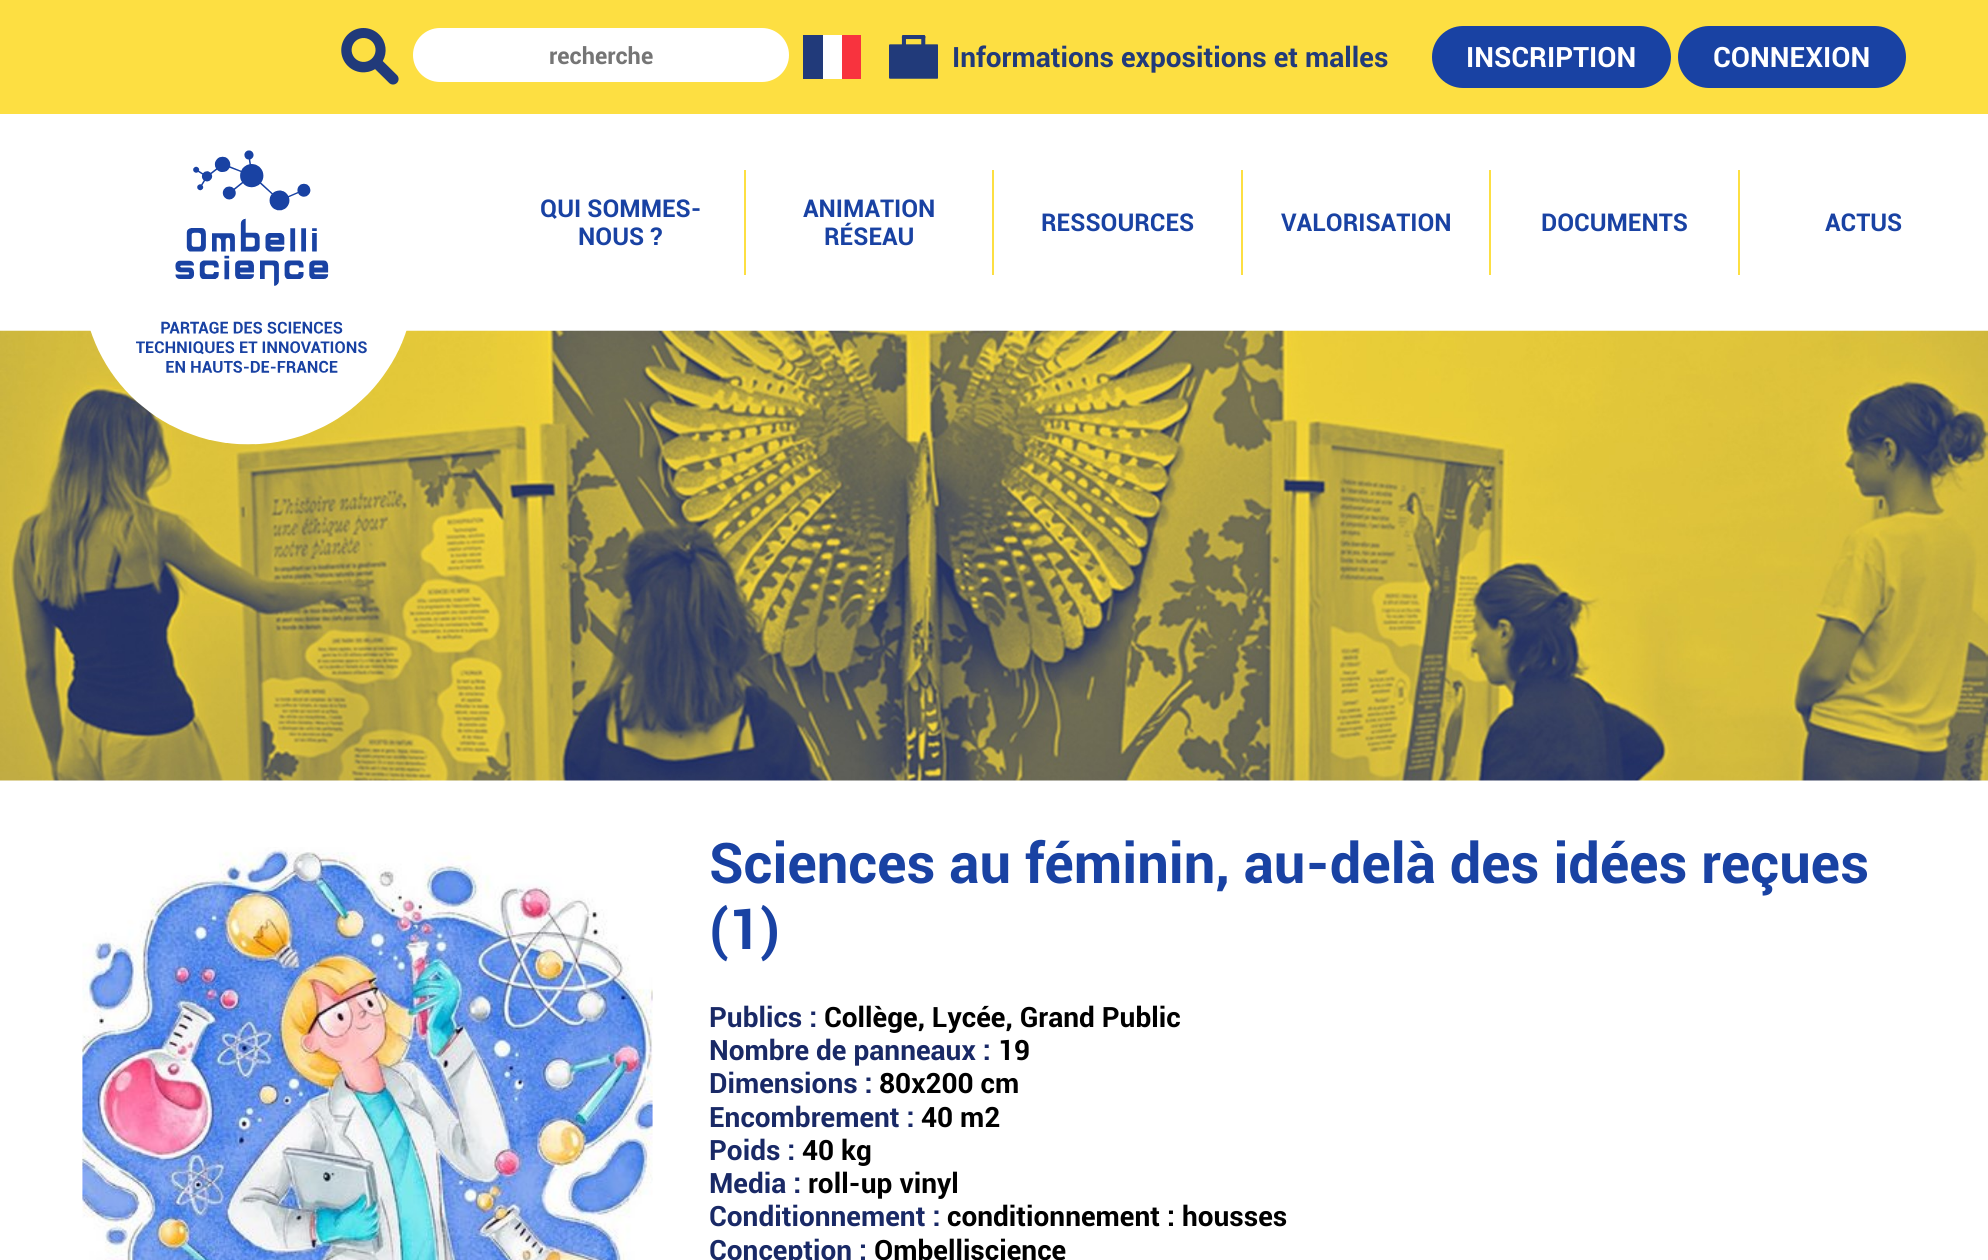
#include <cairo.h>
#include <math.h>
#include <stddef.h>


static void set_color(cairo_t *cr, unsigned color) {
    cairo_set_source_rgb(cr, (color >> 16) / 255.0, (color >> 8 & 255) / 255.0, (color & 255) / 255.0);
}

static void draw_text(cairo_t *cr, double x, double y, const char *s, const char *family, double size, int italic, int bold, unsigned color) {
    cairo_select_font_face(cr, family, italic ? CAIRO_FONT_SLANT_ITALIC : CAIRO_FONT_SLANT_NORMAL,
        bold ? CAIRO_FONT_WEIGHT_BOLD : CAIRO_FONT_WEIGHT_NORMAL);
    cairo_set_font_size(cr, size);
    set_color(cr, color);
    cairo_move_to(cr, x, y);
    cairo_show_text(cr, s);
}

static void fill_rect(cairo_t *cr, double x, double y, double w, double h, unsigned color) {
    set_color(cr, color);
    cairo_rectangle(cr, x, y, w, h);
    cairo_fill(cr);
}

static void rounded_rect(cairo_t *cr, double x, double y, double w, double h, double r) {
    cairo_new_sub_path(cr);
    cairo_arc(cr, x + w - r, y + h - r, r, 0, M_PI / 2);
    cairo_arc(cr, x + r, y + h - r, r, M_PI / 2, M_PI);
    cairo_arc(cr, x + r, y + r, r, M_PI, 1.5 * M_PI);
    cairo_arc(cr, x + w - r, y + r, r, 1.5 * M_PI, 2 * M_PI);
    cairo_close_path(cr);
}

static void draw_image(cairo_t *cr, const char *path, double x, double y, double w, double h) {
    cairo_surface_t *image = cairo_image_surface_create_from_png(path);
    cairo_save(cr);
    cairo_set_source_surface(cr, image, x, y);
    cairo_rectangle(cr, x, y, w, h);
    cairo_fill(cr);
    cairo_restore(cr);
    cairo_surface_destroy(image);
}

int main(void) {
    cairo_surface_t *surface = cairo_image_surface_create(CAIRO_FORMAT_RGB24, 1988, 1260);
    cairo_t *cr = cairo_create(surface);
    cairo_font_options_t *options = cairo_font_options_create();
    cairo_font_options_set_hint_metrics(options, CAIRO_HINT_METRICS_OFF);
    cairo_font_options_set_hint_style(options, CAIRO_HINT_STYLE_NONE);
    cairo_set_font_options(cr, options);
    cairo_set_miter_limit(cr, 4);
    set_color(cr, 0xFFFFFF);
    cairo_paint(cr);
    fill_rect(cr, 0, 0, 1988, 114, 0xFDDF42);
    draw_image(cr, "assets/img1.png", 341, 28, 58, 57);
    set_color(cr, 0xFFFFFF);
    rounded_rect(cr, 413, 28, 376, 54, 27);
    cairo_fill(cr);
    draw_text(cr, 549, 64, "recherche", "Roboto", 23.5, 0, 1, 0x757575);
    fill_rect(cr, 803, 35, 20, 44, 0x213A7A);
    fill_rect(cr, 823, 35, 19, 44, 0xFFFFFF);
    fill_rect(cr, 842, 35, 19, 44, 0xF8333E);
    draw_image(cr, "assets/img2.png", 889, 35, 49, 44);
    draw_text(cr, 952, 67, "Informations expositions et malles", "Roboto", 28, 0, 1, 0x213A7A);
    set_color(cr, 0x1942A3);
    rounded_rect(cr, 1432, 26, 239, 62, 31);
    cairo_fill(cr);
    draw_text(cr, 1466, 67, "INSCRIPTION", "Roboto", 28, 0, 1, 0xFFFFFF);
    set_color(cr, 0x1942A3);
    rounded_rect(cr, 1678, 26, 228, 62, 31);
    cairo_fill(cr);
    draw_text(cr, 1713, 67, "CONNEXION", "Roboto", 28, 0, 1, 0xFFFFFF);
    draw_image(cr, "assets/img4.png", 0, 330, 1988, 451);
    draw_image(cr, "assets/img3.png", 90, 150, 317, 295);
    fill_rect(cr, 744, 170, 2, 105, 0xFDDF42);
    draw_text(cr, 540, 217, "QUI SOMMES-", "Roboto", 24.5, 0, 1, 0x1942A3);
    draw_text(cr, 578, 245, "NOUS ?", "Roboto", 24.5, 0, 1, 0x1942A3);
    fill_rect(cr, 992, 170, 2, 105, 0xFDDF42);
    draw_text(cr, 803, 217, "ANIMATION", "Roboto", 24.5, 0, 1, 0x1942A3);
    draw_text(cr, 824, 245, "RÉSEAU", "Roboto", 24.5, 0, 1, 0x1942A3);
    fill_rect(cr, 1241, 170, 2, 105, 0xFDDF42);
    draw_text(cr, 1041, 231, "RESSOURCES", "Roboto", 24.5, 0, 1, 0x1942A3);
    fill_rect(cr, 1489, 170, 2, 105, 0xFDDF42);
    draw_text(cr, 1281, 231, "VALORISATION", "Roboto", 24.5, 0, 1, 0x1942A3);
    fill_rect(cr, 1738, 170, 2, 105, 0xFDDF42);
    draw_text(cr, 1541, 231, "DOCUMENTS", "Roboto", 24.5, 0, 1, 0x1942A3);
    draw_text(cr, 1825, 231, "ACTUS", "Roboto", 24.5, 0, 1, 0x1942A3);
    draw_image(cr, "assets/img5.png", 82, 847, 571, 413);
    draw_text(cr, 709, 883, "Sciences au féminin, au-delà des idées reçues", "Roboto", 56, 0, 1, 0x1942A3);
    draw_text(cr, 709, 949, "(1)", "Roboto", 56, 0, 1, 0x1942A3);
    draw_text(cr, 709, 1027, "Publics :", "Roboto", 28, 0, 1, 0x192966);
    draw_text(cr, 824, 1027, "Collège, Lycée, Grand Public", "Roboto", 28, 0, 1, 0x000000);
    draw_text(cr, 709, 1060, "Nombre de panneaux :", "Roboto", 28, 0, 1, 0x192966);
    draw_text(cr, 998, 1060, "19", "Roboto", 28, 0, 1, 0x000000);
    draw_text(cr, 709, 1093, "Dimensions :", "Roboto", 28, 0, 1, 0x192966);
    draw_text(cr, 879, 1093, "80x200 cm", "Roboto", 28, 0, 1, 0x000000);
    draw_text(cr, 709, 1127, "Encombrement :", "Roboto", 28, 0, 1, 0x192966);
    draw_text(cr, 921, 1127, "40 m2", "Roboto", 28, 0, 1, 0x000000);
    draw_text(cr, 709, 1160, "Poids :", "Roboto", 28, 0, 1, 0x192966);
    draw_text(cr, 802, 1160, "40 kg", "Roboto", 28, 0, 1, 0x000000);
    draw_text(cr, 709, 1193, "Media :", "Roboto", 28, 0, 1, 0x192966);
    draw_text(cr, 808, 1193, "roll-up vinyl", "Roboto", 28, 0, 1, 0x000000);
    draw_text(cr, 709, 1226, "Conditionnement :", "Roboto", 28, 0, 1, 0x192966);
    draw_text(cr, 947, 1226, "conditionnement : housses", "Roboto", 28, 0, 1, 0x000000);
    draw_text(cr, 709, 1260, "Conception :", "Roboto", 28, 0, 1, 0x192966);
    draw_text(cr, 874, 1260, "Ombelliscience", "Roboto", 28, 0, 1, 0x000000);
    cairo_surface_write_to_png(surface, "output.png");
    cairo_font_options_destroy(options);
    cairo_destroy(cr);
    cairo_surface_destroy(surface);
    return 0;
}
